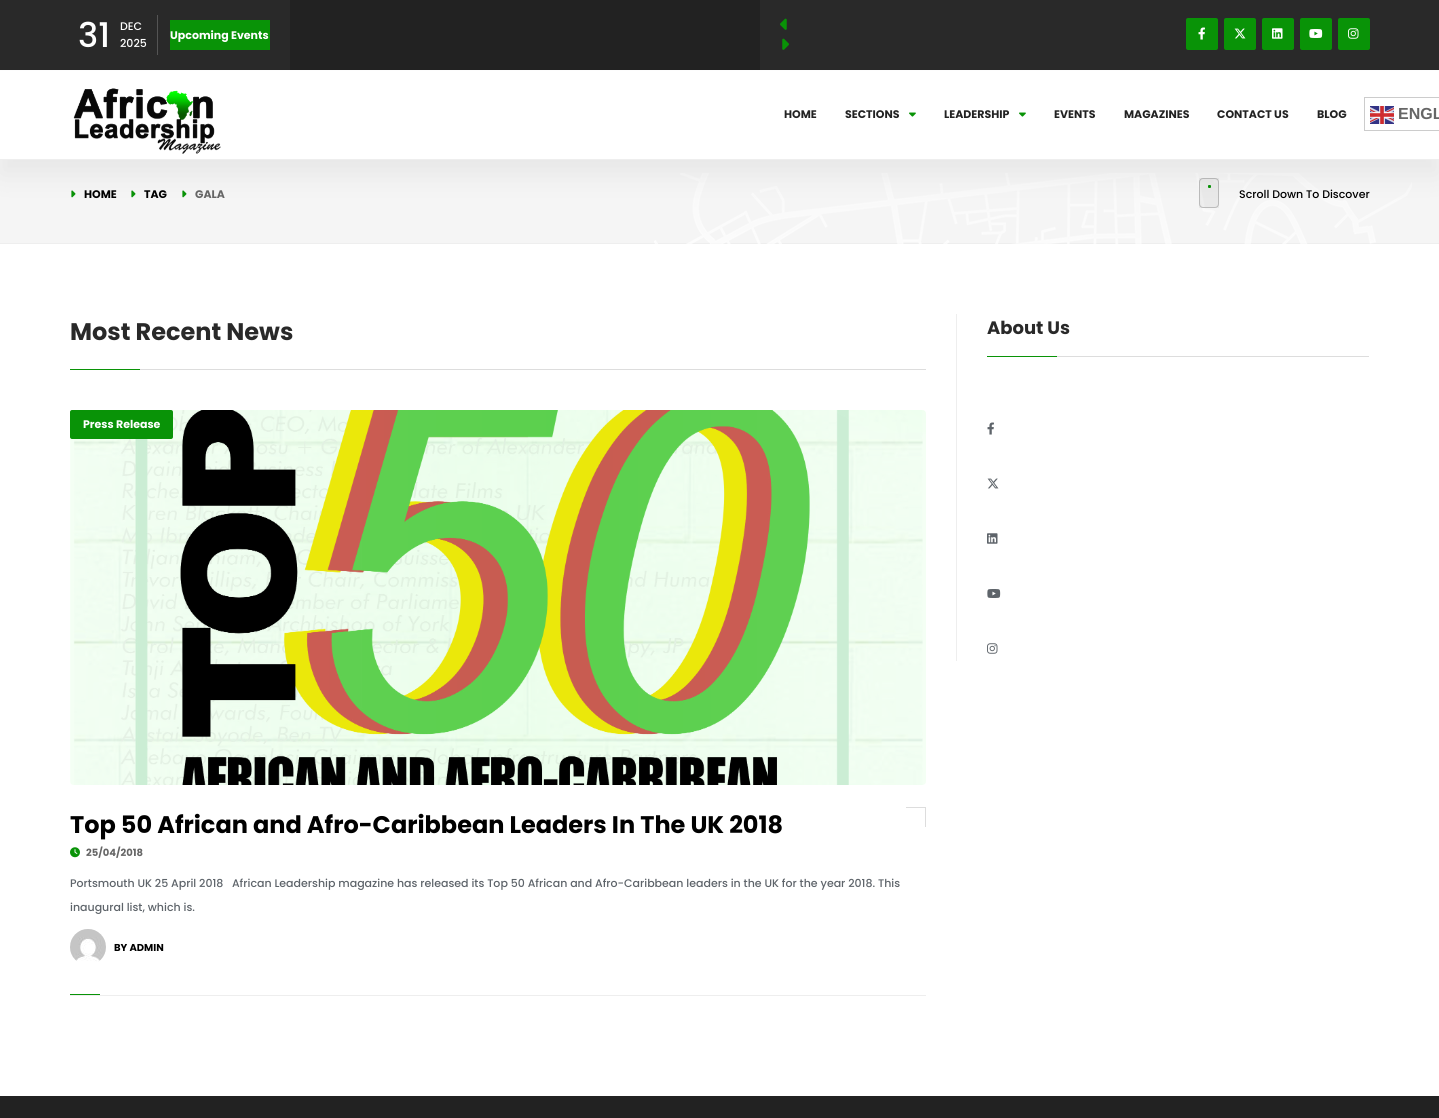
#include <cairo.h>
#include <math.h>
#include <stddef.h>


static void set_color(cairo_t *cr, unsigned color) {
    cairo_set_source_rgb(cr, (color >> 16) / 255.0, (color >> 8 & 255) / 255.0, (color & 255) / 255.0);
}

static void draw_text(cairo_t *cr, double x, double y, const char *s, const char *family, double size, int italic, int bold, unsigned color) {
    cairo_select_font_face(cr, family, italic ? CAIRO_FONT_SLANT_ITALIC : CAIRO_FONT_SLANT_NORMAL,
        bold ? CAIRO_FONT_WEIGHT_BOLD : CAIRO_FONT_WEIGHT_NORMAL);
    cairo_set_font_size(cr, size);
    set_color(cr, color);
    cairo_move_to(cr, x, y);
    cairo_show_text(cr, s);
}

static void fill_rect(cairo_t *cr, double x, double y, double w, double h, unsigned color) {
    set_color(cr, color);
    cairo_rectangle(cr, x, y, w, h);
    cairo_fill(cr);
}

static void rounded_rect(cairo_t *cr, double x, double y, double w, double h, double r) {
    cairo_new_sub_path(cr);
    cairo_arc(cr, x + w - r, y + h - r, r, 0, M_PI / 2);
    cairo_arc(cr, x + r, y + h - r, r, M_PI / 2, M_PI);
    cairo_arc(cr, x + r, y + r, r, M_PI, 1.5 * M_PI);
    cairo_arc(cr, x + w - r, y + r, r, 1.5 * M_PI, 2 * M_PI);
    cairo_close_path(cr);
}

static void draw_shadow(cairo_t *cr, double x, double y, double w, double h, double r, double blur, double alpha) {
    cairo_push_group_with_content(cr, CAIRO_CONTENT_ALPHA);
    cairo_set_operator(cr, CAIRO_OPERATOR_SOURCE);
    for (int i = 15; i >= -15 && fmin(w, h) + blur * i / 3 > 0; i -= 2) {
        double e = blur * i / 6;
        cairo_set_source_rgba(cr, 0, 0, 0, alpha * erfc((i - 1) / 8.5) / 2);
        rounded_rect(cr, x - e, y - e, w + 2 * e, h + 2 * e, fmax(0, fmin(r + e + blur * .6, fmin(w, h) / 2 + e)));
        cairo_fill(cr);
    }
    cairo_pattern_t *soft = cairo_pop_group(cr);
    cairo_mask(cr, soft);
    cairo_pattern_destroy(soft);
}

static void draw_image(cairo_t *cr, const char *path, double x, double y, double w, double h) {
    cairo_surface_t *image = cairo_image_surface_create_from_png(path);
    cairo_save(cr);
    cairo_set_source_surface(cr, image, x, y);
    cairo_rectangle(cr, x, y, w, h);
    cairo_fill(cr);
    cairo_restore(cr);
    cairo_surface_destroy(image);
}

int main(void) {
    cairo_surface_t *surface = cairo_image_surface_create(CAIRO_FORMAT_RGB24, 1439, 1118);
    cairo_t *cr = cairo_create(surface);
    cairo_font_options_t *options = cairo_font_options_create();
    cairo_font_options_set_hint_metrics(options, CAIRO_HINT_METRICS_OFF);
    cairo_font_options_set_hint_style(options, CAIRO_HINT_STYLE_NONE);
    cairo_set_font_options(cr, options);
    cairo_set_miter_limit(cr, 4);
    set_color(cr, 0xFFFFFF);
    cairo_paint(cr);
    fill_rect(cr, 0, 0, 1439, 70, 0x292929);
    fill_rect(cr, 0, 160, 1439, 83, 0xF5F5F5);
    fill_rect(cr, 0, 243, 1439, 1, 0xEEEEEE);
    draw_image(cr, "assets/img11.png", 654, 173, 758, 71);
    draw_image(cr, "assets/img12.png", 71, 190, 5, 8);
    draw_image(cr, "assets/img12.png", 131, 190, 5, 8);
    draw_image(cr, "assets/img12.png", 182, 190, 5, 8);
    cairo_set_source_rgba(cr, 0, 0, 0, 0.05);
    cairo_rectangle(cr, 1199, 178, 20, 30);
    cairo_fill(cr);
    rounded_rect(cr, 1199.5, 178.5, 19, 29, 3.5);
    set_color(cr, 0xBBBBBB);
    cairo_set_line_width(cr, 1);
    cairo_stroke(cr);
    set_color(cr, 0x099307);
    rounded_rect(cr, 1208, 185, 3, 3, 1);
    cairo_fill(cr);
    set_color(cr, 0x000000);
    draw_shadow(cr, 0, 85, 1439, 90, 0, 15, 0.06);
    draw_text(cr, 78, 47, "31", "Poppins Medium", 34, 0, 0, 0xFFFFFF);
    draw_text(cr, 120, 30, "DEC", "Poppins Medium", 11, 0, 0, 0xFFFFFF);
    fill_rect(cr, 157, 15, 1, 40, 0x545454);
    draw_text(cr, 120, 47, "2025", "Poppins Medium", 11, 0, 0, 0xFFFFFF);
    fill_rect(cr, 170, 20, 100, 30, 0x099307);
    draw_text(cr, 170, 39, "Upcoming Events", "Poppins", 11, 0, 1, 0xFFFFFF);
    fill_rect(cr, 290, 0, 470, 70, 0x222222);
    draw_image(cr, "assets/img1.png", 780, 18, 7, 12);
    draw_image(cr, "assets/img2.png", 782, 38, 7, 12);
    set_color(cr, 0x099307);
    rounded_rect(cr, 1186, 18, 32, 32, 2);
    cairo_fill(cr);
    draw_image(cr, "assets/img3.png", 1198, 27, 7, 13);
    rounded_rect(cr, 1224, 18, 32, 32, 2);
    cairo_fill(cr);
    draw_image(cr, "assets/img4.png", 1234, 28, 12, 11);
    rounded_rect(cr, 1262, 18, 32, 32, 2);
    cairo_fill(cr);
    draw_image(cr, "assets/img5.png", 1272, 28, 11, 11);
    rounded_rect(cr, 1300, 18, 32, 32, 2);
    cairo_fill(cr);
    draw_image(cr, "assets/img6.png", 1309, 29, 14, 9);
    rounded_rect(cr, 1338, 18, 32, 32, 2);
    cairo_fill(cr);
    draw_image(cr, "assets/img7.png", 1348, 28, 11, 11);
    fill_rect(cr, 0, 71, 1439, 88, 0xFFFFFF);
    fill_rect(cr, 0, 159, 1439, 1, 0xEEEEEE);
    draw_image(cr, "assets/img8.png", 73, 88, 148, 66);
    draw_text(cr, 784, 118, "HOME", "Poppins", 11, 0, 1, 0x222222);
    draw_text(cr, 845, 118, "SECTIONS", "Poppins", 11, 0, 1, 0x222222);
    draw_image(cr, "assets/img9.png", 909, 112, 7, 5);
    draw_text(cr, 944, 118, "LEADERSHIP", "Poppins", 11, 0, 1, 0x222222);
    draw_image(cr, "assets/img9.png", 1019, 112, 7, 5);
    draw_text(cr, 1054, 118, "EVENTS", "Poppins", 11, 0, 1, 0x222222);
    draw_text(cr, 1124, 118, "MAGAZINES", "Poppins", 11, 0, 1, 0x222222);
    draw_text(cr, 1217, 118, "CONTACT US", "Poppins", 11, 0, 1, 0x222222);
    draw_text(cr, 1317, 118, "BLOG", "Poppins", 11, 0, 1, 0x222222);
    cairo_rectangle(cr, 1364.5, 97.5, 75, 33);
    set_color(cr, 0xCCCCCC);
    cairo_stroke(cr);
    draw_image(cr, "assets/img10.png", 1370, 106, 24, 18);
    draw_text(cr, 1398, 119, "ENGL", "Liberation Sans", 16, 0, 1, 0x666666);
    draw_text(cr, 84, 198, "HOME", "Poppins", 11, 0, 1, 0x000000);
    draw_text(cr, 144, 198, "TAG", "Poppins", 11, 0, 1, 0x000000);
    draw_text(cr, 195, 198, "GALA", "Poppins", 11, 0, 1, 0x666666);
    draw_text(cr, 1239, 198, "Scroll Down To Discover", "Poppins Medium", 11, 0, 0, 0x000000);
    fill_rect(cr, 140, 369, 786, 1, 0xDDDDDD);
    draw_text(cr, 70, 340, "Most Recent News", "Poppins", 24, 0, 1, 0x292929);
    fill_rect(cr, 70, 369, 70, 1, 0x099307);
    fill_rect(cr, 70, 995, 856, 1, 0xEEEEEE);
    draw_image(cr, "assets/img13.png", 70, 410, 856, 375);
    set_color(cr, 0x099307);
    rounded_rect(cr, 70, 410, 103, 29, 2);
    cairo_fill(cr);
    draw_text(cr, 83, 428, "Press Release", "Poppins", 11, 0, 1, 0xFFFFFF);
    draw_text(cr, 70, 833, "Top 50 African and Afro-Caribbean Leaders In The UK 2018", "Poppins", 24, 0, 1, 0x000000);
    fill_rect(cr, 906, 807, 20, 1, 0xDDDDDD);
    fill_rect(cr, 925, 807, 1, 20, 0xDDDDDD);
    draw_image(cr, "assets/img14.png", 70, 847, 10, 11);
    draw_text(cr, 86, 856, "25/04/2018", "Poppins", 10, 0, 1, 0x666666);
    draw_text(cr, 70, 887, "Portsmouth UK 25 April 2018   African Leadership magazine has released its Top 50 African and Afro-Caribbean leaders in the UK for the year 2018. This", "Poppins Medium", 11, 0, 0, 0x5E646A);
    draw_text(cr, 70, 911, "inaugural list, which is.", "Poppins Medium", 11, 0, 0, 0x5E646A);
    draw_image(cr, "assets/img15.png", 70, 929, 36, 33);
    draw_text(cr, 114, 951, "BY ADMIN", "Poppins", 10, 0, 1, 0x000000);
    fill_rect(cr, 70, 994, 30, 1, 0x099307);
    fill_rect(cr, 956, 314, 1, 347, 0xEEEEEE);
    fill_rect(cr, 1057, 356, 312, 1, 0xDDDDDD);
    draw_text(cr, 987, 334, "About Us", "Poppins", 18, 0, 1, 0x292929);
    fill_rect(cr, 987, 356, 70, 1, 0x099307);
    draw_image(cr, "assets/img16.png", 987, 422, 7, 13);
    draw_image(cr, "assets/img17.png", 987, 478, 12, 11);
    draw_image(cr, "assets/img18.png", 987, 533, 11, 11);
    draw_image(cr, "assets/img19.png", 987, 589, 14, 9);
    draw_image(cr, "assets/img20.png", 987, 643, 11, 11);
    fill_rect(cr, 0, 1096, 1439, 22, 0x222222);
    cairo_surface_write_to_png(surface, "output.png");
    cairo_font_options_destroy(options);
    cairo_destroy(cr);
    cairo_surface_destroy(surface);
    return 0;
}
